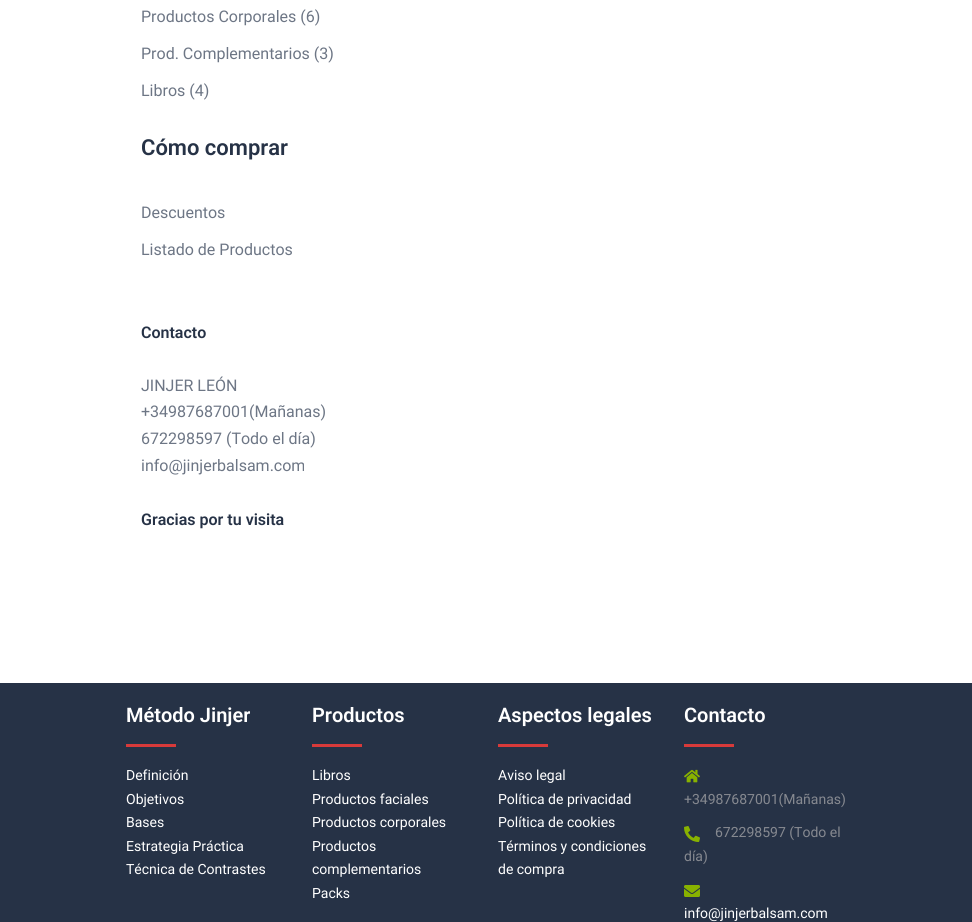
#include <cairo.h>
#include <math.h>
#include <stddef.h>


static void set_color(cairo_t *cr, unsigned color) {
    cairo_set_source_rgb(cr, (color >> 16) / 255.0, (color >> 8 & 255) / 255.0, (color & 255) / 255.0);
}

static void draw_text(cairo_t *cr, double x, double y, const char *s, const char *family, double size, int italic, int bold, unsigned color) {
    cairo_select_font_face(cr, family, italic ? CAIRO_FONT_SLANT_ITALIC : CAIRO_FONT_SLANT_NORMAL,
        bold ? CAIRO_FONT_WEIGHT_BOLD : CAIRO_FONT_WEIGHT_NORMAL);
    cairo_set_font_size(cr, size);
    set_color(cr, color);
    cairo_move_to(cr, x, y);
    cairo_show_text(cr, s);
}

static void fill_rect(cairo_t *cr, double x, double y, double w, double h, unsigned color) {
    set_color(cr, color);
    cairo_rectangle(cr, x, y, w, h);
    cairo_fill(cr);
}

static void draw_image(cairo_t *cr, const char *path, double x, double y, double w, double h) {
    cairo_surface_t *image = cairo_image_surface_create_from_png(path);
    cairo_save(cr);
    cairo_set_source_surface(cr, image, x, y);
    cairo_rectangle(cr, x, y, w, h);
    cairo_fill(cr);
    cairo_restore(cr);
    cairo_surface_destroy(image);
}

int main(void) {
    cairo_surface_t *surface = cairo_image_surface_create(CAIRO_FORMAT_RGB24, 972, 922);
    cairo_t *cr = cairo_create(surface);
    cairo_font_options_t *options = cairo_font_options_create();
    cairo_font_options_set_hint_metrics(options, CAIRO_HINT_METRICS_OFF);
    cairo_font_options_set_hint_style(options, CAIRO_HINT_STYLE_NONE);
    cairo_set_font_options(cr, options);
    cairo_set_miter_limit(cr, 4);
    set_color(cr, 0xFFFFFF);
    cairo_paint(cr);
    draw_text(cr, 141, 22, "Productos Corporales (6)", "Roboto", 16, 0, 0, 0x6D7685);
    draw_text(cr, 141, 59, "Prod. Complementarios (3)", "Roboto", 16, 0, 0, 0x6D7685);
    draw_text(cr, 141, 96, "Libros (4)", "Roboto", 16, 0, 0, 0x6D7685);
    draw_text(cr, 141, 155, "Cómo comprar", "Roboto SemiBold", 22, 0, 0, 0x263246);
    draw_text(cr, 141, 218, "Descuentos", "Roboto", 16, 0, 0, 0x6D7685);
    draw_text(cr, 141, 255, "Listado de Productos", "Roboto", 16, 0, 0, 0x6D7685);
    draw_text(cr, 141, 338, "Contacto", "Roboto SemiBold", 16, 0, 0, 0x263246);
    draw_text(cr, 141, 391, "JINJER LEÓN", "Roboto", 16, 0, 0, 0x6D7685);
    draw_text(cr, 141, 417, "+34987687001(Mañanas)", "Roboto", 16, 0, 0, 0x6D7685);
    draw_text(cr, 141, 444, "672298597 (Todo el día)", "Roboto", 16, 0, 0, 0x6D7685);
    draw_text(cr, 141, 471, "info@jinjerbalsam.com", "Roboto", 16, 0, 0, 0x6D7685);
    draw_text(cr, 141, 525, "Gracias por tu visita", "Roboto SemiBold", 16, 0, 0, 0x263246);
    fill_rect(cr, 0, 683, 972, 239, 0x263246);
    draw_text(cr, 126, 722, "Método Jinjer", "Roboto SemiBold", 20, 0, 0, 0xFFFFFF);
    fill_rect(cr, 126, 744, 50, 3, 0xD83A3A);
    draw_text(cr, 126, 780, "Definición", "Roboto", 14, 0, 0, 0xFFFFFF);
    draw_text(cr, 126, 804, "Objetivos", "Roboto", 14, 0, 0, 0xFFFFFF);
    draw_text(cr, 126, 827, "Bases", "Roboto", 14, 0, 0, 0xFFFFFF);
    draw_text(cr, 126, 851, "Estrategia Práctica", "Roboto", 14, 0, 0, 0xFFFFFF);
    draw_text(cr, 126, 874, "Técnica de Contrastes", "Roboto", 14, 0, 0, 0xFFFFFF);
    draw_text(cr, 312, 722, "Productos", "Roboto SemiBold", 20, 0, 0, 0xFFFFFF);
    fill_rect(cr, 312, 744, 50, 3, 0xD83A3A);
    draw_text(cr, 312, 780, "Libros", "Roboto", 14, 0, 0, 0xFFFFFF);
    draw_text(cr, 312, 804, "Productos faciales", "Roboto", 14, 0, 0, 0xFFFFFF);
    draw_text(cr, 312, 827, "Productos corporales", "Roboto", 14, 0, 0, 0xFFFFFF);
    draw_text(cr, 312, 851, "Productos", "Roboto", 14, 0, 0, 0xFFFFFF);
    draw_text(cr, 312, 874, "complementarios", "Roboto", 14, 0, 0, 0xFFFFFF);
    draw_text(cr, 312, 898, "Packs", "Roboto", 14, 0, 0, 0xFFFFFF);
    draw_text(cr, 498, 722, "Aspectos legales", "Roboto SemiBold", 20, 0, 0, 0xFFFFFF);
    fill_rect(cr, 498, 744, 50, 3, 0xD83A3A);
    draw_text(cr, 498, 780, "Aviso legal", "Roboto", 14, 0, 0, 0xFFFFFF);
    draw_text(cr, 498, 804, "Política de privacidad", "Roboto", 14, 0, 0, 0xFFFFFF);
    draw_text(cr, 498, 827, "Política de cookies", "Roboto", 14, 0, 0, 0xFFFFFF);
    draw_text(cr, 498, 851, "Términos y condiciones", "Roboto", 14, 0, 0, 0xFFFFFF);
    draw_text(cr, 498, 874, "de compra", "Roboto", 14, 0, 0, 0xFFFFFF);
    draw_text(cr, 684, 722, "Contacto", "Roboto SemiBold", 20, 0, 0, 0xFFFFFF);
    fill_rect(cr, 684, 744, 50, 3, 0xD83A3A);
    draw_image(cr, "assets/img1.png", 684, 769, 16, 14);
    draw_text(cr, 684, 804, "+34987687001(Mañanas)", "Roboto", 14, 0, 0, 0x868990);
    draw_image(cr, "assets/img2.png", 684, 826, 16, 16);
    draw_text(cr, 715, 837, "672298597 (Todo el", "Roboto", 14, 0, 0, 0x868990);
    draw_text(cr, 684, 861, "día)", "Roboto", 14, 0, 0, 0x868990);
    draw_image(cr, "assets/img3.png", 684, 885, 16, 12);
    draw_text(cr, 684, 918, "info@jinjerbalsam.com", "Roboto", 14, 0, 0, 0xFFFFFF);
    cairo_surface_write_to_png(surface, "output.png");
    cairo_font_options_destroy(options);
    cairo_destroy(cr);
    cairo_surface_destroy(surface);
    return 0;
}
